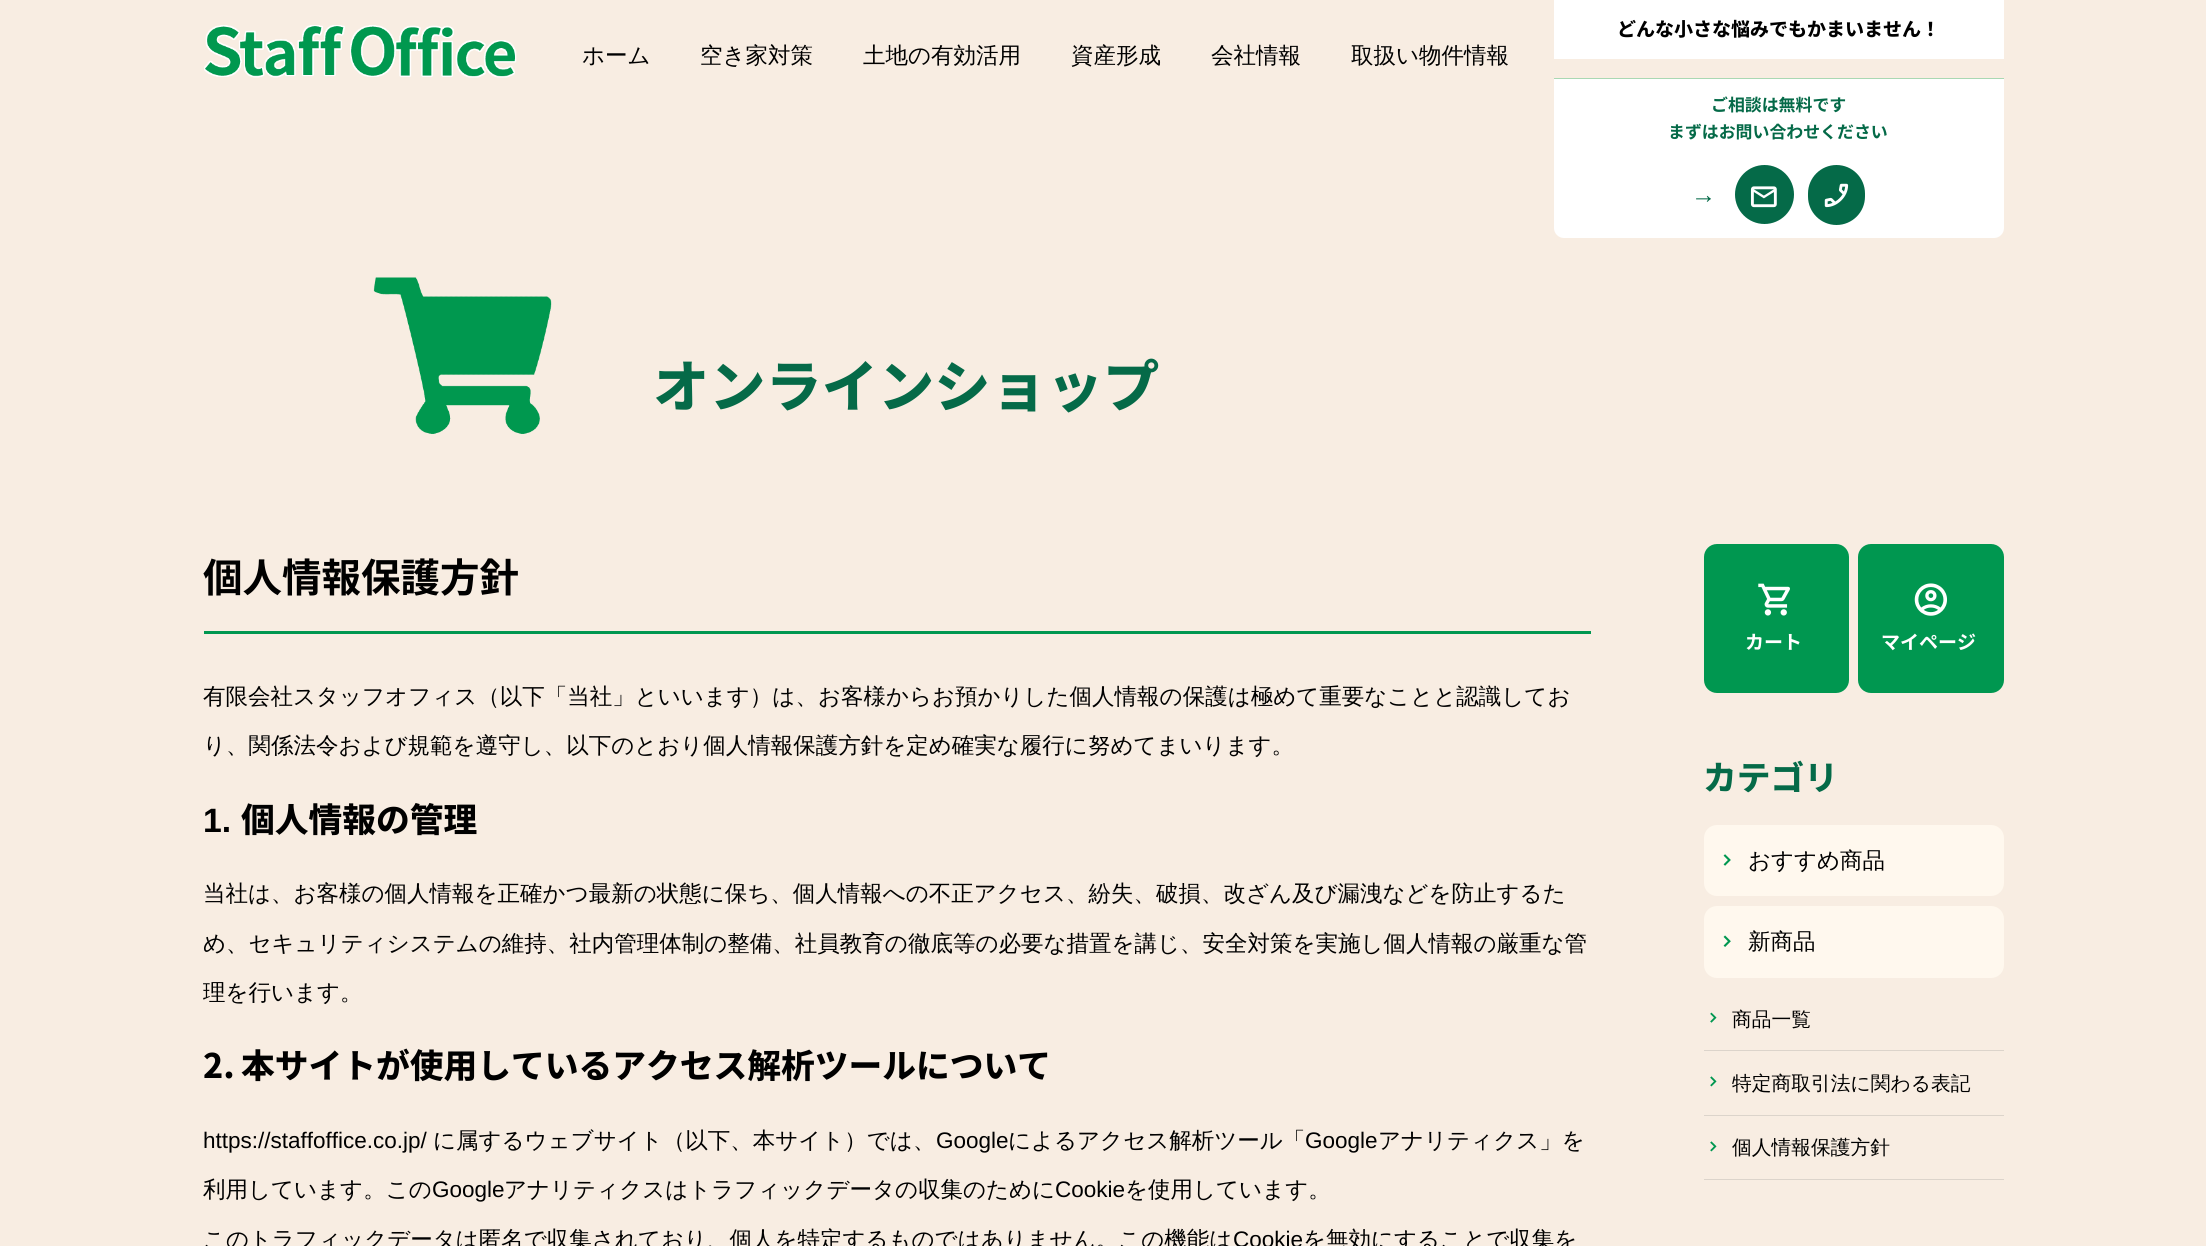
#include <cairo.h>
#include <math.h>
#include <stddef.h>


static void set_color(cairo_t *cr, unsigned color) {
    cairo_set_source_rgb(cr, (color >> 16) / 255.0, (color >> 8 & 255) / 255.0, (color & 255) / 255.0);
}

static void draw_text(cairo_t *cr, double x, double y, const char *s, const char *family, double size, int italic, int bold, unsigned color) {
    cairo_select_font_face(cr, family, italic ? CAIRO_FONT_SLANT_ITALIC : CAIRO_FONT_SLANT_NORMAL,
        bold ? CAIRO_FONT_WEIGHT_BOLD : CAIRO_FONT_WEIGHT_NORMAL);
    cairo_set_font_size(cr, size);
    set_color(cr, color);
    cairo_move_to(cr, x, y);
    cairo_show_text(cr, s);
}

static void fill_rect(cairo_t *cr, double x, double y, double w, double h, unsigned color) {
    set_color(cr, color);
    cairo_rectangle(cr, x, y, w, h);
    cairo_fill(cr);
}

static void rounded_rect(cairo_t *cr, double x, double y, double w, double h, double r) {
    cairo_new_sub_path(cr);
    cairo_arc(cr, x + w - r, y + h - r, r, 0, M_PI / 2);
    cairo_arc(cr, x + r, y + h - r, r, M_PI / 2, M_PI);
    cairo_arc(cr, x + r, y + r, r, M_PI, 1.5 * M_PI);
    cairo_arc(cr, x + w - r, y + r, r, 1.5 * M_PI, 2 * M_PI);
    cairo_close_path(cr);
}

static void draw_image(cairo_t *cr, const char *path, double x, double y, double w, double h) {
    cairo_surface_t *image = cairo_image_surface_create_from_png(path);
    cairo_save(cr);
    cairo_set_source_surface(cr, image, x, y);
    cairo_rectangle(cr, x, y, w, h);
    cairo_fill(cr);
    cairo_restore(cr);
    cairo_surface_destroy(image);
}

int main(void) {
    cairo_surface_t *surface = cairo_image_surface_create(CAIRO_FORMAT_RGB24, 2206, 1246);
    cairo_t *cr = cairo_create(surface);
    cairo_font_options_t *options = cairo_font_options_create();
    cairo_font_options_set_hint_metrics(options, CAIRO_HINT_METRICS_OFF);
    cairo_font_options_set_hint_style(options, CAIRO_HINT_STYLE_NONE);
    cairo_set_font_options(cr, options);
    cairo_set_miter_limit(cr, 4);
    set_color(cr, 0xF8EDE2);
    cairo_paint(cr);
    draw_image(cr, "assets/img1.png", 204, 25, 313, 53);
    draw_text(cr, 582, 63, "ホーム", "WenQuanYi Zen Hei Medium", 22.5, 0, 0, 0x000000);
    draw_text(cr, 700, 63, "空き家対策", "WenQuanYi Zen Hei Medium", 22.5, 0, 0, 0x000000);
    draw_text(cr, 863, 63, "土地の有効活用", "WenQuanYi Zen Hei Medium", 22.5, 0, 0, 0x000000);
    draw_text(cr, 1071, 63, "資産形成", "WenQuanYi Zen Hei Medium", 22.5, 0, 0, 0x000000);
    draw_text(cr, 1211, 63, "会社情報", "WenQuanYi Zen Hei Medium", 22.5, 0, 0, 0x000000);
    draw_text(cr, 1351, 63, "取扱い物件情報", "WenQuanYi Zen Hei Medium", 22.5, 0, 0, 0x000000);
    fill_rect(cr, 1554, 0, 450, 59, 0xFFFFFF);
    draw_text(cr, 1617, 36, "どんな小さな悩みでもかまいません！", "Noto Sans JP ExtraBold", 19, 0, 0, 0x000000);
    set_color(cr, 0xFFFFFF);
    cairo_new_path(cr);
    cairo_move_to(cr, 1554, 78);
    cairo_line_to(cr, 2004, 78);
    cairo_line_to(cr, 2004, 228);
    cairo_curve_to(cr, 2004, 233.5, 1999.5, 238, 1994, 238);
    cairo_line_to(cr, 1564, 238);
    cairo_curve_to(cr, 1558.5, 238, 1554, 233.5, 1554, 228);
    cairo_close_path(cr);
    cairo_fill(cr);
    fill_rect(cr, 1554, 78, 450, 1, 0xAAD8B3);
    draw_text(cr, 1711, 111, "ご相談は無料です", "Noto Sans JP", 16.9, 0, 1, 0x056A48);
    draw_text(cr, 1668, 138, "まずはお問い合わせください", "Noto Sans JP", 16.9, 0, 1, 0x056A48);
    draw_text(cr, 1691, 203, "→", "Liberation Sans", 25, 0, 0, 0x056A48);
    cairo_new_path(cr);
    cairo_arc(cr, 1764.5, 194.5, 29.5, 0, 2 * M_PI);
    cairo_fill(cr);
    draw_image(cr, "assets/img2.png", 1750, 186, 27, 22);
    rounded_rect(cr, 1808, 165, 57, 60, 28.5);
    cairo_fill(cr);
    draw_image(cr, "assets/img3.png", 1824, 183, 25, 25);
    draw_image(cr, "assets/img4.png", 373, 277, 179, 157);
    draw_text(cr, 653, 407, "オンラインショップ", "Noto Sans JP ExtraBold", 56.25, 0, 0, 0x056A48);
    draw_text(cr, 203, 592, "個人情報保護方針", "Noto Sans JP", 39.5, 0, 1, 0x000000);
    fill_rect(cr, 204, 631, 1387, 3, 0x009750);
    draw_text(cr, 203, 704, "有限会社スタッフオフィス（以下「当社」といいます）は、お客様からお預かりした個人情報の保護は極めて重要なことと認識してお", "WenQuanYi Zen Hei Medium", 22.5, 0, 0, 0x000000);
    draw_text(cr, 203, 753, "り、関係法令および規範を遵守し、以下のとおり個人情報保護方針を定め確実な履行に努めてまいります。", "WenQuanYi Zen Hei Medium", 22.5, 0, 0, 0x000000);
    draw_text(cr, 203, 832, "1.", "Liberation Sans", 33.75, 0, 1, 0x000000);
    draw_text(cr, 241, 832, "個人情報の管理", "Noto Sans JP ExtraBold", 33.75, 0, 0, 0x000000);
    draw_text(cr, 203, 901, "当社は、お客様の個人情報を正確かつ最新の状態に保ち、個人情報への不正アクセス、紛失、破損、改ざん及び漏洩などを防止するた", "WenQuanYi Zen Hei Medium", 22.5, 0, 0, 0x000000);
    draw_text(cr, 203, 951, "め、セキュリティシステムの維持、社内管理体制の整備、社員教育の徹底等の必要な措置を講じ、安全対策を実施し個人情報の厳重な管", "WenQuanYi Zen Hei Medium", 22.5, 0, 0, 0x000000);
    draw_text(cr, 203, 1000, "理を行います。", "WenQuanYi Zen Hei Medium", 22.5, 0, 0, 0x000000);
    draw_text(cr, 203, 1078, "2.", "Noto Sans JP ExtraBold", 33.75, 0, 0, 0x000000);
    draw_text(cr, 241, 1078, "本サイトが使用しているアクセス解析ツールについて", "Noto Sans JP ExtraBold", 33.75, 0, 0, 0x000000);
    draw_text(cr, 203, 1148, "https://staffoffice.co.jp/", "Liberation Sans", 22.5, 0, 0, 0x000000);
    draw_text(cr, 433, 1148, "に属するウェブサイト（以下、本サイト）では、", "WenQuanYi Zen Hei Medium", 22.5, 0, 0, 0x000000);
    draw_text(cr, 936, 1148, "Google", "Liberation Sans", 22.5, 0, 0, 0x000000);
    draw_text(cr, 1008, 1148, "によるアクセス解析ツール「", "WenQuanYi Zen Hei Medium", 22.5, 0, 0, 0x000000);
    draw_text(cr, 1305, 1148, "Google", "Liberation Sans", 22.5, 0, 0, 0x000000);
    draw_text(cr, 1378, 1148, "アナリティクス」を", "WenQuanYi Zen Hei Medium", 22.5, 0, 0, 0x000000);
    draw_text(cr, 203, 1197, "利用しています。この", "WenQuanYi Zen Hei Medium", 22.5, 0, 0, 0x000000);
    draw_text(cr, 432, 1197, "Google", "Liberation Sans", 22.5, 0, 0, 0x000000);
    draw_text(cr, 504, 1197, "アナリティクスはトラフィックデータの収集のために", "WenQuanYi Zen Hei Medium", 22.5, 0, 0, 0x000000);
    draw_text(cr, 1055, 1197, "Cookie", "Liberation Sans", 22.5, 0, 0, 0x000000);
    draw_text(cr, 1125, 1197, "を使用しています。", "WenQuanYi Zen Hei Medium", 22.5, 0, 0, 0x000000);
    draw_text(cr, 203, 1247, "このトラフィックデータは匿名で収集されており、個人を特定するものではありません。この機能は", "WenQuanYi Zen Hei Medium", 22.5, 0, 0, 0x000000);
    draw_text(cr, 1233, 1247, "Cookie", "Liberation Sans", 22.5, 0, 0, 0x000000);
    draw_text(cr, 1303, 1247, "を無効にすることで収集を", "WenQuanYi Zen Hei Medium", 22.5, 0, 0, 0x000000);
    set_color(cr, 0x009750);
    rounded_rect(cr, 1704, 544, 145, 149, 13);
    cairo_fill(cr);
    draw_image(cr, "assets/img5.png", 1758, 583, 32, 33);
    draw_text(cr, 1745, 649, "カート", "Noto Sans JP", 19, 0, 1, 0xFFFFFF);
    set_color(cr, 0x009750);
    rounded_rect(cr, 1858, 544, 146, 149, 13);
    cairo_fill(cr);
    draw_image(cr, "assets/img6.png", 1914, 583, 33, 33);
    draw_text(cr, 1881, 649, "マイページ", "Noto Sans JP", 19, 0, 1, 0xFFFFFF);
    draw_text(cr, 1703, 790, "カテゴリ", "Noto Sans JP ExtraBold", 33.75, 0, 0, 0x056A48);
    set_color(cr, 0xFFF8EE);
    rounded_rect(cr, 1704, 825, 300, 71, 13);
    cairo_fill(cr);
    draw_image(cr, "assets/img7.png", 1723, 854, 8, 12);
    draw_text(cr, 1748, 868, "おすすめ商品", "WenQuanYi Zen Hei Medium", 22.5, 0, 0, 0x000000);
    set_color(cr, 0xFFF8EE);
    rounded_rect(cr, 1704, 906, 300, 72, 13);
    cairo_fill(cr);
    draw_image(cr, "assets/img8.png", 1723, 935, 8, 12);
    draw_text(cr, 1748, 949, "新商品", "WenQuanYi Zen Hei Medium", 22.5, 0, 0, 0x000000);
    fill_rect(cr, 1704, 1050, 300, 1, 0xDCD4CB);
    draw_image(cr, "assets/img9.png", 1710, 1012, 7, 11);
    draw_text(cr, 1732, 1026, "商品一覧", "WenQuanYi Zen Hei Medium", 19.75, 0, 0, 0x000000);
    fill_rect(cr, 1704, 1115, 300, 1, 0xDCD4CB);
    draw_image(cr, "assets/img10.png", 1710, 1076, 7, 11);
    draw_text(cr, 1732, 1090, "特定商取引法に関わる表記", "WenQuanYi Zen Hei Medium", 19.75, 0, 0, 0x000000);
    fill_rect(cr, 1704, 1179, 300, 1, 0xDCD4CB);
    draw_image(cr, "assets/img10.png", 1710, 1141, 7, 11);
    draw_text(cr, 1732, 1154, "個人情報保護方針", "WenQuanYi Zen Hei Medium", 19.75, 0, 0, 0x000000);
    cairo_surface_write_to_png(surface, "output.png");
    cairo_font_options_destroy(options);
    cairo_destroy(cr);
    cairo_surface_destroy(surface);
    return 0;
}
